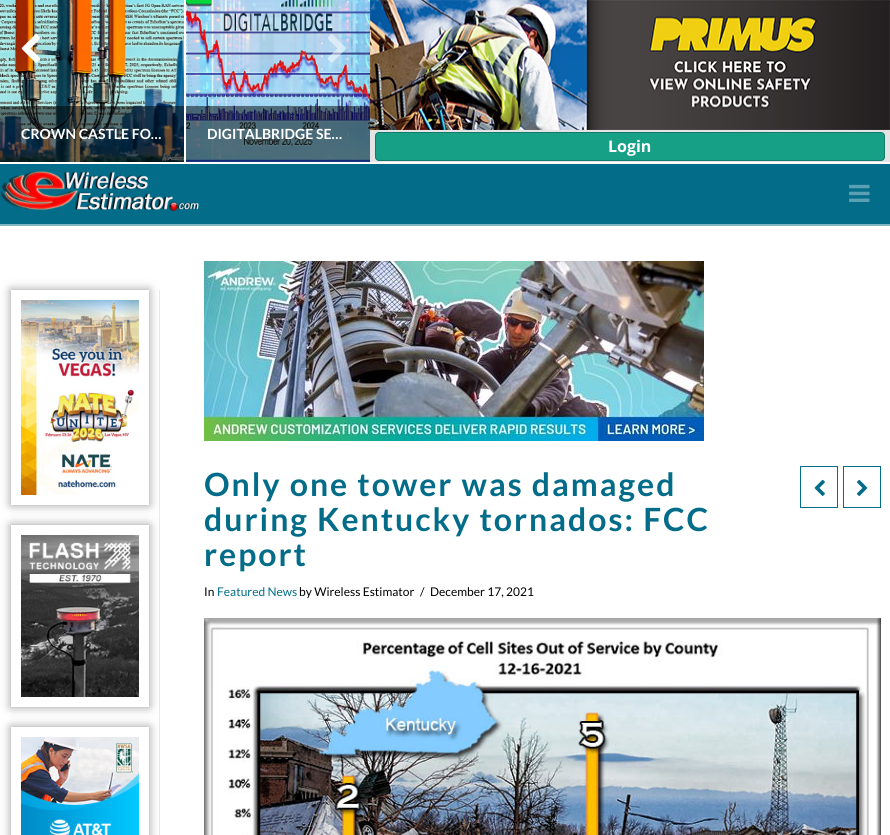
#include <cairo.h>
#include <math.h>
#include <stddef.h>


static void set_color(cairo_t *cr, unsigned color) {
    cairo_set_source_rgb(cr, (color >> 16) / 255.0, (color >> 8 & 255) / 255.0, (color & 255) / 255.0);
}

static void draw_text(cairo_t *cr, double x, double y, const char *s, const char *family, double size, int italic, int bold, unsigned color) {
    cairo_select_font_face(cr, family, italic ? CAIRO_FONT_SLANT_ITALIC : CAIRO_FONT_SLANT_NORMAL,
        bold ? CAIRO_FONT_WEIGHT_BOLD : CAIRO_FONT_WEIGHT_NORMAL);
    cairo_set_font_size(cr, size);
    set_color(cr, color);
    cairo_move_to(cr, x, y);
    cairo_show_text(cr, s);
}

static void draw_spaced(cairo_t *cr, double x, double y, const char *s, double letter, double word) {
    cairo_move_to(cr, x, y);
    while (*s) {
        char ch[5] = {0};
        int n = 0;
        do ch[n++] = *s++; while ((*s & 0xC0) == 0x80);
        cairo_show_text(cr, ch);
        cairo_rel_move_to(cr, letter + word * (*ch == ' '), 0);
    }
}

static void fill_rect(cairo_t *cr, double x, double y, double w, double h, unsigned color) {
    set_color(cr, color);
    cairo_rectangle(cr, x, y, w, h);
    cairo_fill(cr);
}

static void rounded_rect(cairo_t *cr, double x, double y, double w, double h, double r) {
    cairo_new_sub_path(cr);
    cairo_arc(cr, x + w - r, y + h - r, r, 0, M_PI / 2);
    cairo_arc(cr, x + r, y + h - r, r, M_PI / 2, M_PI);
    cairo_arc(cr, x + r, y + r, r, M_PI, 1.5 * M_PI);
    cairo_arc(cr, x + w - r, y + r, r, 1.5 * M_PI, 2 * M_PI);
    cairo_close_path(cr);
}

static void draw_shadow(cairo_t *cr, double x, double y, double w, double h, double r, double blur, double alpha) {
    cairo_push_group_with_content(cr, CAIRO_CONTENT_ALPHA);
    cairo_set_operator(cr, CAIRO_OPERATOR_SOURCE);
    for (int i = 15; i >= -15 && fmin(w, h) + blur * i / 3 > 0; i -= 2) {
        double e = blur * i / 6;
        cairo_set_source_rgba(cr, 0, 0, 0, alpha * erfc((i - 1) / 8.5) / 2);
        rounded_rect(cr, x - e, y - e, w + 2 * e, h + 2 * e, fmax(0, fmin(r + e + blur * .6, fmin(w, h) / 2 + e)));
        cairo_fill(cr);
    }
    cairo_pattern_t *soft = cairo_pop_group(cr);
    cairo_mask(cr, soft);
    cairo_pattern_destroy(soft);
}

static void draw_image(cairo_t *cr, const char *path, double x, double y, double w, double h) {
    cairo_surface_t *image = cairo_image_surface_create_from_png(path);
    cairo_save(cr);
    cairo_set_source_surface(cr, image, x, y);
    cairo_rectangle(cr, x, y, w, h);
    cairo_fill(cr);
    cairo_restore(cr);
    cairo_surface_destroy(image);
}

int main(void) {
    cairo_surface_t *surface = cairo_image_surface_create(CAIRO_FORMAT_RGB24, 890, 835);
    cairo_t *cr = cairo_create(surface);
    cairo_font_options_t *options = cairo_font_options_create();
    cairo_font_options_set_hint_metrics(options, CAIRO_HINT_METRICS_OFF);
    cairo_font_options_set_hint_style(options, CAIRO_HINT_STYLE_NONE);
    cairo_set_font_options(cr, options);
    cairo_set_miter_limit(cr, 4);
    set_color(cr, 0xE4E4E4);
    cairo_paint(cr);
    fill_rect(cr, 0, 162, 890, 2, 0xFFFFFF);
    draw_image(cr, "assets/img3.png", 0, 0, 184, 162);
    draw_image(cr, "assets/img1.png", 21, 34, 20, 29);
    draw_image(cr, "assets/img4.png", 186, 0, 184, 162);
    draw_image(cr, "assets/img2.png", 327, 34, 19, 29);
    cairo_set_source_rgba(cr, 0, 0, 0, 0.5);
    cairo_rectangle(cr, 0, 106, 184, 56);
    cairo_fill(cr);
    draw_text(cr, 21, 139, "CROWN CASTLE FO…", "Lato", 14, 0, 1, 0xFFFFFF);
    fill_rect(cr, 184, 0, 2, 162, 0xFFFFFF);
    cairo_set_source_rgba(cr, 0, 0, 0, 0.5);
    cairo_rectangle(cr, 186, 106, 184, 56);
    cairo_fill(cr);
    draw_text(cr, 207, 139, "DIGITALBRIDGE SE…", "Lato", 14, 0, 1, 0xFFFFFF);
    draw_image(cr, "assets/img5.png", 370, 0, 520, 130);
    set_color(cr, 0x16A085);
    rounded_rect(cr, 375.5, 132.5, 509, 28, 3.5);
    cairo_fill_preserve(cr);
    set_color(cr, 0x117A6C);
    cairo_set_line_width(cr, 1);
    cairo_stroke(cr);
    draw_text(cr, 608, 152, "Login", "Open Sans", 16, 0, 1, 0xFFFFFF);
    fill_rect(cr, 0, 164, 890, 60, 0x026C89);
    fill_rect(cr, 0, 224, 890, 2, 0x81B6C4);
    draw_image(cr, "assets/img6.png", 0, 171, 199, 40);
    draw_image(cr, "assets/img7.png", 849, 184, 21, 18);
    fill_rect(cr, 0, 226, 890, 609, 0xFFFFFF);
    fill_rect(cr, 159, 290, 1, 545, 0xEAEAEA);
    cairo_save(cr);
    cairo_set_fill_rule(cr, CAIRO_FILL_RULE_EVEN_ODD);
    cairo_new_path(cr);
    cairo_move_to(cr, 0, 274);
    cairo_line_to(cr, 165, 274);
    cairo_line_to(cr, 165, 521);
    cairo_line_to(cr, 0, 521);
    cairo_close_path(cr);
    cairo_move_to(cr, 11, 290);
    cairo_line_to(cr, 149, 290);
    cairo_line_to(cr, 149, 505);
    cairo_line_to(cr, 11, 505);
    cairo_close_path(cr);
    cairo_clip(cr);
    set_color(cr, 0x000000);
    draw_shadow(cr, 11, 290, 138, 215, 0, 5, 0.4);
    cairo_restore(cr);
    draw_image(cr, "assets/img8.png", 21, 300, 118, 195);
    cairo_save(cr);
    cairo_set_fill_rule(cr, CAIRO_FILL_RULE_EVEN_ODD);
    cairo_new_path(cr);
    cairo_move_to(cr, 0, 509);
    cairo_line_to(cr, 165, 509);
    cairo_line_to(cr, 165, 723);
    cairo_line_to(cr, 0, 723);
    cairo_close_path(cr);
    cairo_move_to(cr, 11, 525);
    cairo_line_to(cr, 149, 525);
    cairo_line_to(cr, 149, 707);
    cairo_line_to(cr, 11, 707);
    cairo_close_path(cr);
    cairo_clip(cr);
    set_color(cr, 0x000000);
    draw_shadow(cr, 11, 525, 138, 182, 0, 5, 0.4);
    cairo_restore(cr);
    draw_image(cr, "assets/img9.png", 21, 535, 118, 162);
    cairo_save(cr);
    cairo_set_fill_rule(cr, CAIRO_FILL_RULE_EVEN_ODD);
    cairo_new_path(cr);
    cairo_move_to(cr, 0, 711);
    cairo_line_to(cr, 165, 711);
    cairo_line_to(cr, 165, 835);
    cairo_line_to(cr, 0, 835);
    cairo_close_path(cr);
    cairo_move_to(cr, 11, 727);
    cairo_line_to(cr, 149, 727);
    cairo_line_to(cr, 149, 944);
    cairo_line_to(cr, 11, 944);
    cairo_close_path(cr);
    cairo_clip(cr);
    set_color(cr, 0x000000);
    draw_shadow(cr, 11, 727, 138, 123, 0, 5, 0.4);
    cairo_restore(cr);
    draw_image(cr, "assets/img10.png", 21, 737, 118, 98);
    draw_image(cr, "assets/img11.png", 204, 261, 500, 180);
    cairo_select_font_face(cr, "Lato", CAIRO_FONT_SLANT_NORMAL, CAIRO_FONT_WEIGHT_BOLD);
    cairo_set_font_size(cr, 32);
    set_color(cr, 0x026C89);
    draw_spaced(cr, 204, 496, "Only one tower was damaged", 2, 0);
    draw_spaced(cr, 204, 531, "during Kentucky tornados: FCC", 2, 0);
    draw_spaced(cr, 204, 566, "report", 2, 0);
    cairo_rectangle(cr, 800.5, 466.5, 37, 41);
    cairo_stroke(cr);
    draw_image(cr, "assets/img12.png", 814, 479, 11, 17);
    cairo_rectangle(cr, 843.5, 466.5, 37, 41);
    cairo_stroke(cr);
    draw_image(cr, "assets/img13.png", 856, 479, 12, 17);
    draw_text(cr, 204, 596, "In", "Lato", 12, 0, 0, 0x000000);
    draw_text(cr, 217, 596, "Featured News", "Lato", 12, 0, 0, 0x026C89);
    draw_text(cr, 299, 596, "by Wireless Estimator", "Lato", 12, 0, 0, 0x000000);
    draw_text(cr, 420, 596, "/", "Lato", 12, 0, 0, 0x000000);
    draw_text(cr, 430, 596, "December 17, 2021", "Lato", 12, 0, 0, 0x000000);
    draw_image(cr, "assets/img14.png", 204, 618, 677, 217);
    cairo_surface_write_to_png(surface, "output.png");
    cairo_font_options_destroy(options);
    cairo_destroy(cr);
    cairo_surface_destroy(surface);
    return 0;
}
